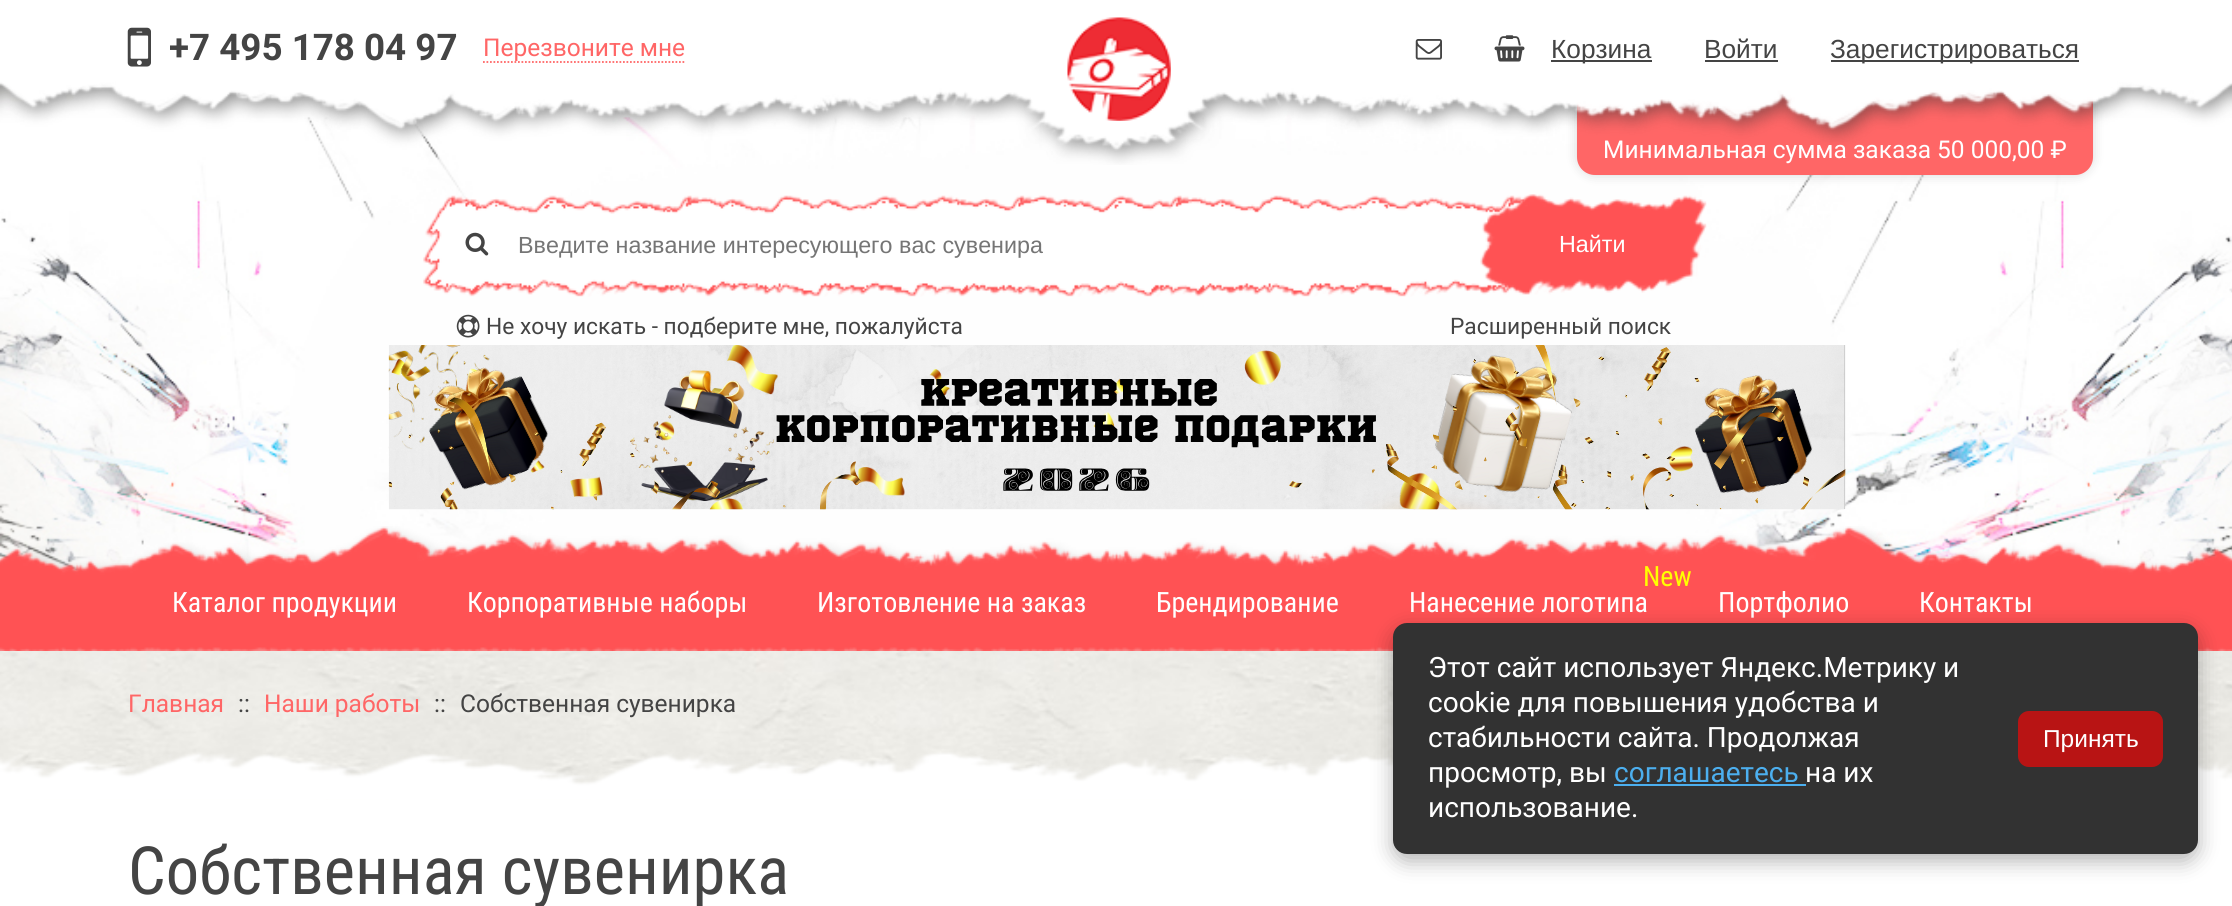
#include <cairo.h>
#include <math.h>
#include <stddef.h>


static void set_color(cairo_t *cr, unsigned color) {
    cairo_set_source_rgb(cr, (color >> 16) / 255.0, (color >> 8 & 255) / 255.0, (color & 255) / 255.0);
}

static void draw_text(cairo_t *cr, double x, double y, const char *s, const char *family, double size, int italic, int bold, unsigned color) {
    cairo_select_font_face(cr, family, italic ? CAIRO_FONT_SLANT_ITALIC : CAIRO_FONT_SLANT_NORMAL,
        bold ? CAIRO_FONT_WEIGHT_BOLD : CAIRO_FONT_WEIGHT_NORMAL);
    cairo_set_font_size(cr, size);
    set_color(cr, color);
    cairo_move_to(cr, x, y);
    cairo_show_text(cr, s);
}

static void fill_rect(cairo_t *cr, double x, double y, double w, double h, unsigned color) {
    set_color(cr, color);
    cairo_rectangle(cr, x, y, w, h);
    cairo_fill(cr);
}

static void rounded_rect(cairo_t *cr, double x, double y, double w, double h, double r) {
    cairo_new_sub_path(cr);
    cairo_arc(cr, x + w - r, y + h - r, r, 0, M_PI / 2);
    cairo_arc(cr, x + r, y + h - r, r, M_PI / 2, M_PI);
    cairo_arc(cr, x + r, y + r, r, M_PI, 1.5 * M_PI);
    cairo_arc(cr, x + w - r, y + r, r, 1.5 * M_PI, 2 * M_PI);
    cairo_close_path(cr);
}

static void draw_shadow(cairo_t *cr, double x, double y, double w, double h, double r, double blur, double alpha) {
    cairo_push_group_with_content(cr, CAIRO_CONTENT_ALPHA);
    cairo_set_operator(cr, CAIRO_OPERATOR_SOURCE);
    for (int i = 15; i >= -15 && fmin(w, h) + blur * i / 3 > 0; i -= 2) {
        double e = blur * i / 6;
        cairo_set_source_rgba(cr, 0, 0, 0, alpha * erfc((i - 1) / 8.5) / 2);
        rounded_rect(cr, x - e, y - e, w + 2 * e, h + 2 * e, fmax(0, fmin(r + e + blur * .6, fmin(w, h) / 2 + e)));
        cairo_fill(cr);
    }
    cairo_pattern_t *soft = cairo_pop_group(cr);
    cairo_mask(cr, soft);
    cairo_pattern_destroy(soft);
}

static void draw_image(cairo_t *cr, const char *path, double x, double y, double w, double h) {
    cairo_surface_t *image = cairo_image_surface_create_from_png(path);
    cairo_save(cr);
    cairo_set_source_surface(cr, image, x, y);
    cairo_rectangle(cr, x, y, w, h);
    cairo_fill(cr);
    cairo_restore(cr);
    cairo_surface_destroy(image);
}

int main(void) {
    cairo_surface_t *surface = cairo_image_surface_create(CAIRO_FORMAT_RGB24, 2232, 906);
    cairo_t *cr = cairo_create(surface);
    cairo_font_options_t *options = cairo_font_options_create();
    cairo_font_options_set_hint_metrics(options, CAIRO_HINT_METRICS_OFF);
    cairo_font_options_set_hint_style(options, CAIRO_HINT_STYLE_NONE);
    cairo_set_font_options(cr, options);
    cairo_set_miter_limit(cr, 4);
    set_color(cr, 0xFFFFFF);
    cairo_paint(cr);
    draw_image(cr, "assets/img1.png", 0, 651, 2232, 149);
    draw_image(cr, "assets/img2.png", 0, 82, 2232, 491);
    set_color(cr, 0x000000);
    draw_shadow(cr, 1577, 0, 516, 175, 18, 6, 0.15);
    set_color(cr, 0xFF6666);
    cairo_new_path(cr);
    cairo_move_to(cr, 1577, 0);
    cairo_line_to(cr, 2093, 0);
    cairo_line_to(cr, 2093, 157);
    cairo_curve_to(cr, 2093, 167, 2085, 175, 2075, 175);
    cairo_line_to(cr, 1595, 175);
    cairo_curve_to(cr, 1585, 175, 1577, 167, 1577, 157);
    cairo_close_path(cr);
    cairo_fill(cr);
    draw_text(cr, 1603, 158, "Минимальная сумма заказа 50 000,00 ₽", "Roboto", 24.5, 0, 0, 0xFFFFFF);
    draw_image(cr, "assets/img3.png", 0, 0, 2232, 165);
    draw_image(cr, "assets/img4.png", 127, 27, 24, 40);
    draw_text(cr, 169, 60, "+7 495 178 04 97", "Roboto", 36.75, 0, 1, 0x444444);
    draw_text(cr, 483, 56, "Перезвоните мне", "Roboto", 24.5, 0, 0, 0xFF6666);
    cairo_new_path(cr);
    cairo_move_to(cr, 483, 62);
    cairo_line_to(cr, 686, 62);
    cairo_set_line_width(cr, 1.8);
    cairo_set_dash(cr, (double[]){1.75, 1.75}, 2, 0);
    cairo_stroke(cr);
    draw_image(cr, "assets/img5.png", 1067, 17, 104, 104);
    draw_image(cr, "assets/img6.png", 1415, 39, 27, 21);
    draw_image(cr, "assets/img7.png", 1494, 35, 31, 27);
    fill_rect(cr, 1551, 60, 101, 2, 0x444444);
    draw_text(cr, 1551, 58, "Корзина", "Liberation Sans", 26.25, 0, 0, 0x444444);
    draw_text(cr, 1704, 58, "Войти", "Liberation Sans", 26.25, 0, 0, 0x444444);
    fill_rect(cr, 1705, 60, 73, 2, 0x444444);
    fill_rect(cr, 1831, 60, 248, 2, 0x444444);
    draw_text(cr, 1830, 58, "Зарегистрироваться", "Liberation Sans", 26.25, 0, 0, 0x444444);
    draw_image(cr, "assets/img9.png", 423, 195, 1102, 102);
    draw_image(cr, "assets/img8.png", 465, 232, 24, 24);
    draw_text(cr, 518, 253, "Введите название интересующего вас сувенира", "Liberation Sans", 23.3, 0, 0, 0x757575);
    draw_image(cr, "assets/img10.png", 1480, 194, 227, 101);
    draw_text(cr, 1559, 252, "Найти", "Liberation Sans", 23.3, 0, 0, 0xFFFFFF);
    draw_image(cr, "assets/img11.png", 456, 314, 24, 24);
    draw_text(cr, 486, 334, "Не хочу искать - подберите мне, пожалуйста", "Roboto", 22.75, 0, 0, 0x444444);
    draw_text(cr, 1450, 334, "Расширенный поиск", "Roboto", 22.75, 0, 0, 0x444444);
    draw_image(cr, "assets/img12.png", 388, 345, 1458, 165);
    draw_image(cr, "assets/img13.png", 0, 526, 2232, 125);
    draw_text(cr, 172, 612, "Каталог продукции", "Roboto Condensed", 28, 0, 0, 0xFFFFFF);
    draw_text(cr, 467, 612, "Корпоративные наборы", "Roboto Condensed", 28, 0, 0, 0xFFFFFF);
    draw_text(cr, 817, 612, "Изготовление на заказ", "Roboto Condensed", 28, 0, 0, 0xFFFFFF);
    draw_text(cr, 1156, 612, "Брендирование", "Roboto Condensed", 28, 0, 0, 0xFFFFFF);
    draw_text(cr, 1643, 586, "New", "Roboto Condensed", 28, 0, 0, 0xFFFF00);
    draw_text(cr, 1409, 612, "Нанесение логотипа", "Roboto Condensed", 28, 0, 0, 0xFFFFFF);
    draw_text(cr, 1718, 612, "Портфолио", "Roboto Condensed", 28, 0, 0, 0xFFFFFF);
    draw_text(cr, 1919, 612, "Контакты", "Roboto Condensed", 28, 0, 0, 0xFFFFFF);
    draw_text(cr, 128, 712, "Главная", "Roboto", 24.5, 0, 0, 0xFF6666);
    draw_text(cr, 238, 712, "::", "Roboto", 24.5, 0, 0, 0x444444);
    draw_text(cr, 264, 712, "Наши работы", "Roboto", 24.5, 0, 0, 0xFF6666);
    draw_text(cr, 434, 712, "::", "Roboto", 24.5, 0, 0, 0x444444);
    draw_text(cr, 460, 712, "Собственная сувенирка", "Roboto", 24.5, 0, 0, 0x444444);
    draw_image(cr, "assets/img14.png", 0, 752, 2232, 48);
    draw_text(cr, 128, 894, "Собственная сувенирка", "Roboto Condensed", 66.5, 0, 0, 0x444444);
    set_color(cr, 0x000000);
    draw_shadow(cr, 1393, 630, 805, 231, 14, 10.5, 0.3);
    set_color(cr, 0x323232);
    rounded_rect(cr, 1393, 623, 805, 231, 14);
    cairo_fill(cr);
    draw_text(cr, 1428, 677, "Этот сайт использует Яндекс.Метрику и", "Roboto", 28, 0, 0, 0xFFFFFF);
    draw_text(cr, 1428, 712, "cookie для повышения удобства и", "Roboto", 28, 0, 0, 0xFFFFFF);
    draw_text(cr, 1428, 747, "стабильности сайта. Продолжая", "Roboto", 28, 0, 0, 0xFFFFFF);
    draw_text(cr, 1428, 782, "просмотр, вы", "Roboto", 28, 0, 0, 0xFFFFFF);
    draw_text(cr, 1614, 782, "соглашаетесь", "Roboto", 28, 0, 0, 0x4CAFEF);
    fill_rect(cr, 1614, 784, 192, 2, 0x4CAFEF);
    draw_text(cr, 1805, 782, "на их", "Roboto", 28, 0, 0, 0xFFFFFF);
    draw_text(cr, 1428, 817, "использование.", "Roboto", 28, 0, 0, 0xFFFFFF);
    set_color(cr, 0xB81414);
    rounded_rect(cr, 2018, 711, 145, 56, 11);
    cairo_fill(cr);
    draw_text(cr, 2043, 747, "Принять", "Liberation Sans", 24.5, 0, 0, 0xFFFFFF);
    cairo_surface_write_to_png(surface, "output.png");
    cairo_font_options_destroy(options);
    cairo_destroy(cr);
    cairo_surface_destroy(surface);
    return 0;
}
